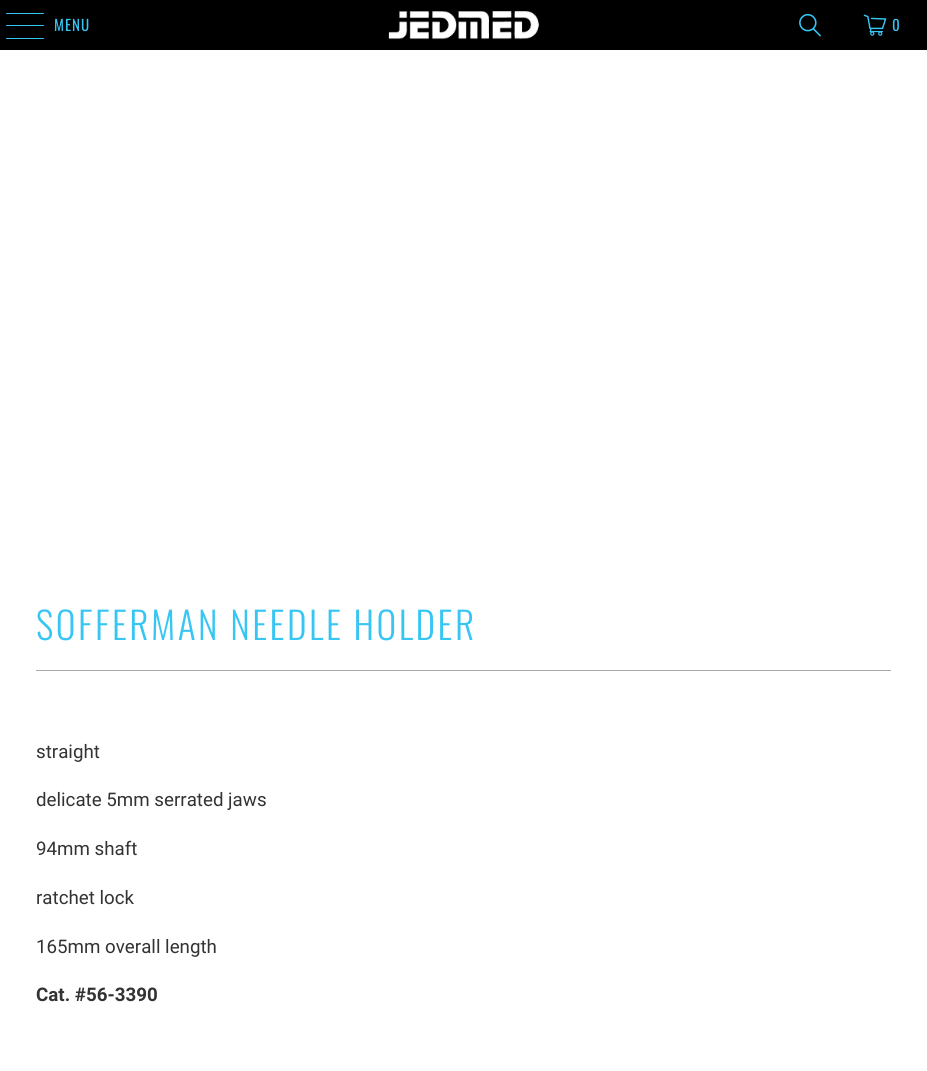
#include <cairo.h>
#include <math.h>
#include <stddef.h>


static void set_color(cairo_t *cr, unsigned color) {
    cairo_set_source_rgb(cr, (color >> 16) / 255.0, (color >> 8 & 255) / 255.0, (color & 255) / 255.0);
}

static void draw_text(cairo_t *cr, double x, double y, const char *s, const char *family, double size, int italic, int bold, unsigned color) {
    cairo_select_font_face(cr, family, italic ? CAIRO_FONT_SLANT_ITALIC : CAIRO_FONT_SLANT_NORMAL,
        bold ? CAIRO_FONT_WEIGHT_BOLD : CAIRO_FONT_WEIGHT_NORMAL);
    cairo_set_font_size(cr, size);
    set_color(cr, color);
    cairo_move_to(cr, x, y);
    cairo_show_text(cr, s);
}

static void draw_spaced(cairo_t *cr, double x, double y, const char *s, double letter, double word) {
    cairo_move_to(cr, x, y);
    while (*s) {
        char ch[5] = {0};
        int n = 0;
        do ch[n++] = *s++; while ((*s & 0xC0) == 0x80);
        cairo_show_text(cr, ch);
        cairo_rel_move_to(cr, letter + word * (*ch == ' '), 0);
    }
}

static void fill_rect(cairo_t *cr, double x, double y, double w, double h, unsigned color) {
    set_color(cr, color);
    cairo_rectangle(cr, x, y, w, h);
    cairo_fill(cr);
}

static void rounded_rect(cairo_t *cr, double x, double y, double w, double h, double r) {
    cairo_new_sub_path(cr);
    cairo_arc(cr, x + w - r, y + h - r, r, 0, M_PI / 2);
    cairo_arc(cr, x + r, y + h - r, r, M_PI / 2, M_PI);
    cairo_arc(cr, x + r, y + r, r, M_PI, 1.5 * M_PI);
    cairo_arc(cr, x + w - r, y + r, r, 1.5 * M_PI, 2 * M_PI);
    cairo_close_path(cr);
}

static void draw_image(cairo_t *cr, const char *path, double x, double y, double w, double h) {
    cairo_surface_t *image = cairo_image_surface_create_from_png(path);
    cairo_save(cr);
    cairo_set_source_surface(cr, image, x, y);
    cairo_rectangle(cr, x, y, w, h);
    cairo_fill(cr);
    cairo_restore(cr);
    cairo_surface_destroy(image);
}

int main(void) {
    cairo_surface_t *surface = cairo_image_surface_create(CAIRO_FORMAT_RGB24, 927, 1071);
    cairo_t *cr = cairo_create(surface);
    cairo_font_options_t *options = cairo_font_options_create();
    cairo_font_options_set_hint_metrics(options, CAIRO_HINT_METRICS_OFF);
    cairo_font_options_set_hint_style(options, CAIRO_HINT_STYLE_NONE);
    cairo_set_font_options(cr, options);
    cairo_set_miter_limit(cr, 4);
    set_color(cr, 0xFFFFFF);
    cairo_paint(cr);
    fill_rect(cr, 0, 0, 927, 50, 0x000000);
    set_color(cr, 0x37C6F4);
    rounded_rect(cr, 6, 13, 38, 1, 0.5);
    cairo_fill(cr);
    rounded_rect(cr, 6, 25, 38, 1, 0.5);
    cairo_fill(cr);
    rounded_rect(cr, 6, 38, 38, 1, 0.5);
    cairo_fill(cr);
    cairo_select_font_face(cr, "Oswald", CAIRO_FONT_SLANT_NORMAL, CAIRO_FONT_WEIGHT_NORMAL);
    cairo_set_font_size(cr, 15);
    draw_spaced(cr, 54, 31, "MENU", 1, 0);
    draw_image(cr, "assets/img1.png", 388, 11, 151, 29);
    draw_image(cr, "assets/img2.png", 799, 13, 22, 24);
    draw_image(cr, "assets/img3.png", 863, 14, 24, 22);
    draw_spaced(cr, 892, 31, "0", 1, 0);
    cairo_select_font_face(cr, "Oswald Light", CAIRO_FONT_SLANT_NORMAL, CAIRO_FONT_WEIGHT_NORMAL);
    cairo_set_font_size(cr, 37.5);
    draw_spaced(cr, 36, 640, "SOFFERMAN NEEDLE HOLDER", 2.5, 0);
    fill_rect(cr, 36, 670, 855, 1, 0xAAAAAA);
    draw_text(cr, 36, 758, "straight", "Roboto", 18.75, 0, 0, 0x333333);
    draw_text(cr, 36, 806, "delicate 5mm serrated jaws", "Roboto", 18.75, 0, 0, 0x333333);
    draw_text(cr, 36, 855, "94mm shaft", "Roboto", 18.75, 0, 0, 0x333333);
    draw_text(cr, 36, 904, "ratchet lock", "Roboto", 18.75, 0, 0, 0x333333);
    draw_text(cr, 36, 953, "165mm overall length", "Roboto", 18.75, 0, 0, 0x333333);
    draw_text(cr, 36, 1001, "Cat. #56-3390", "Roboto", 18.75, 0, 1, 0x333333);
    cairo_surface_write_to_png(surface, "output.png");
    cairo_font_options_destroy(options);
    cairo_destroy(cr);
    cairo_surface_destroy(surface);
    return 0;
}
